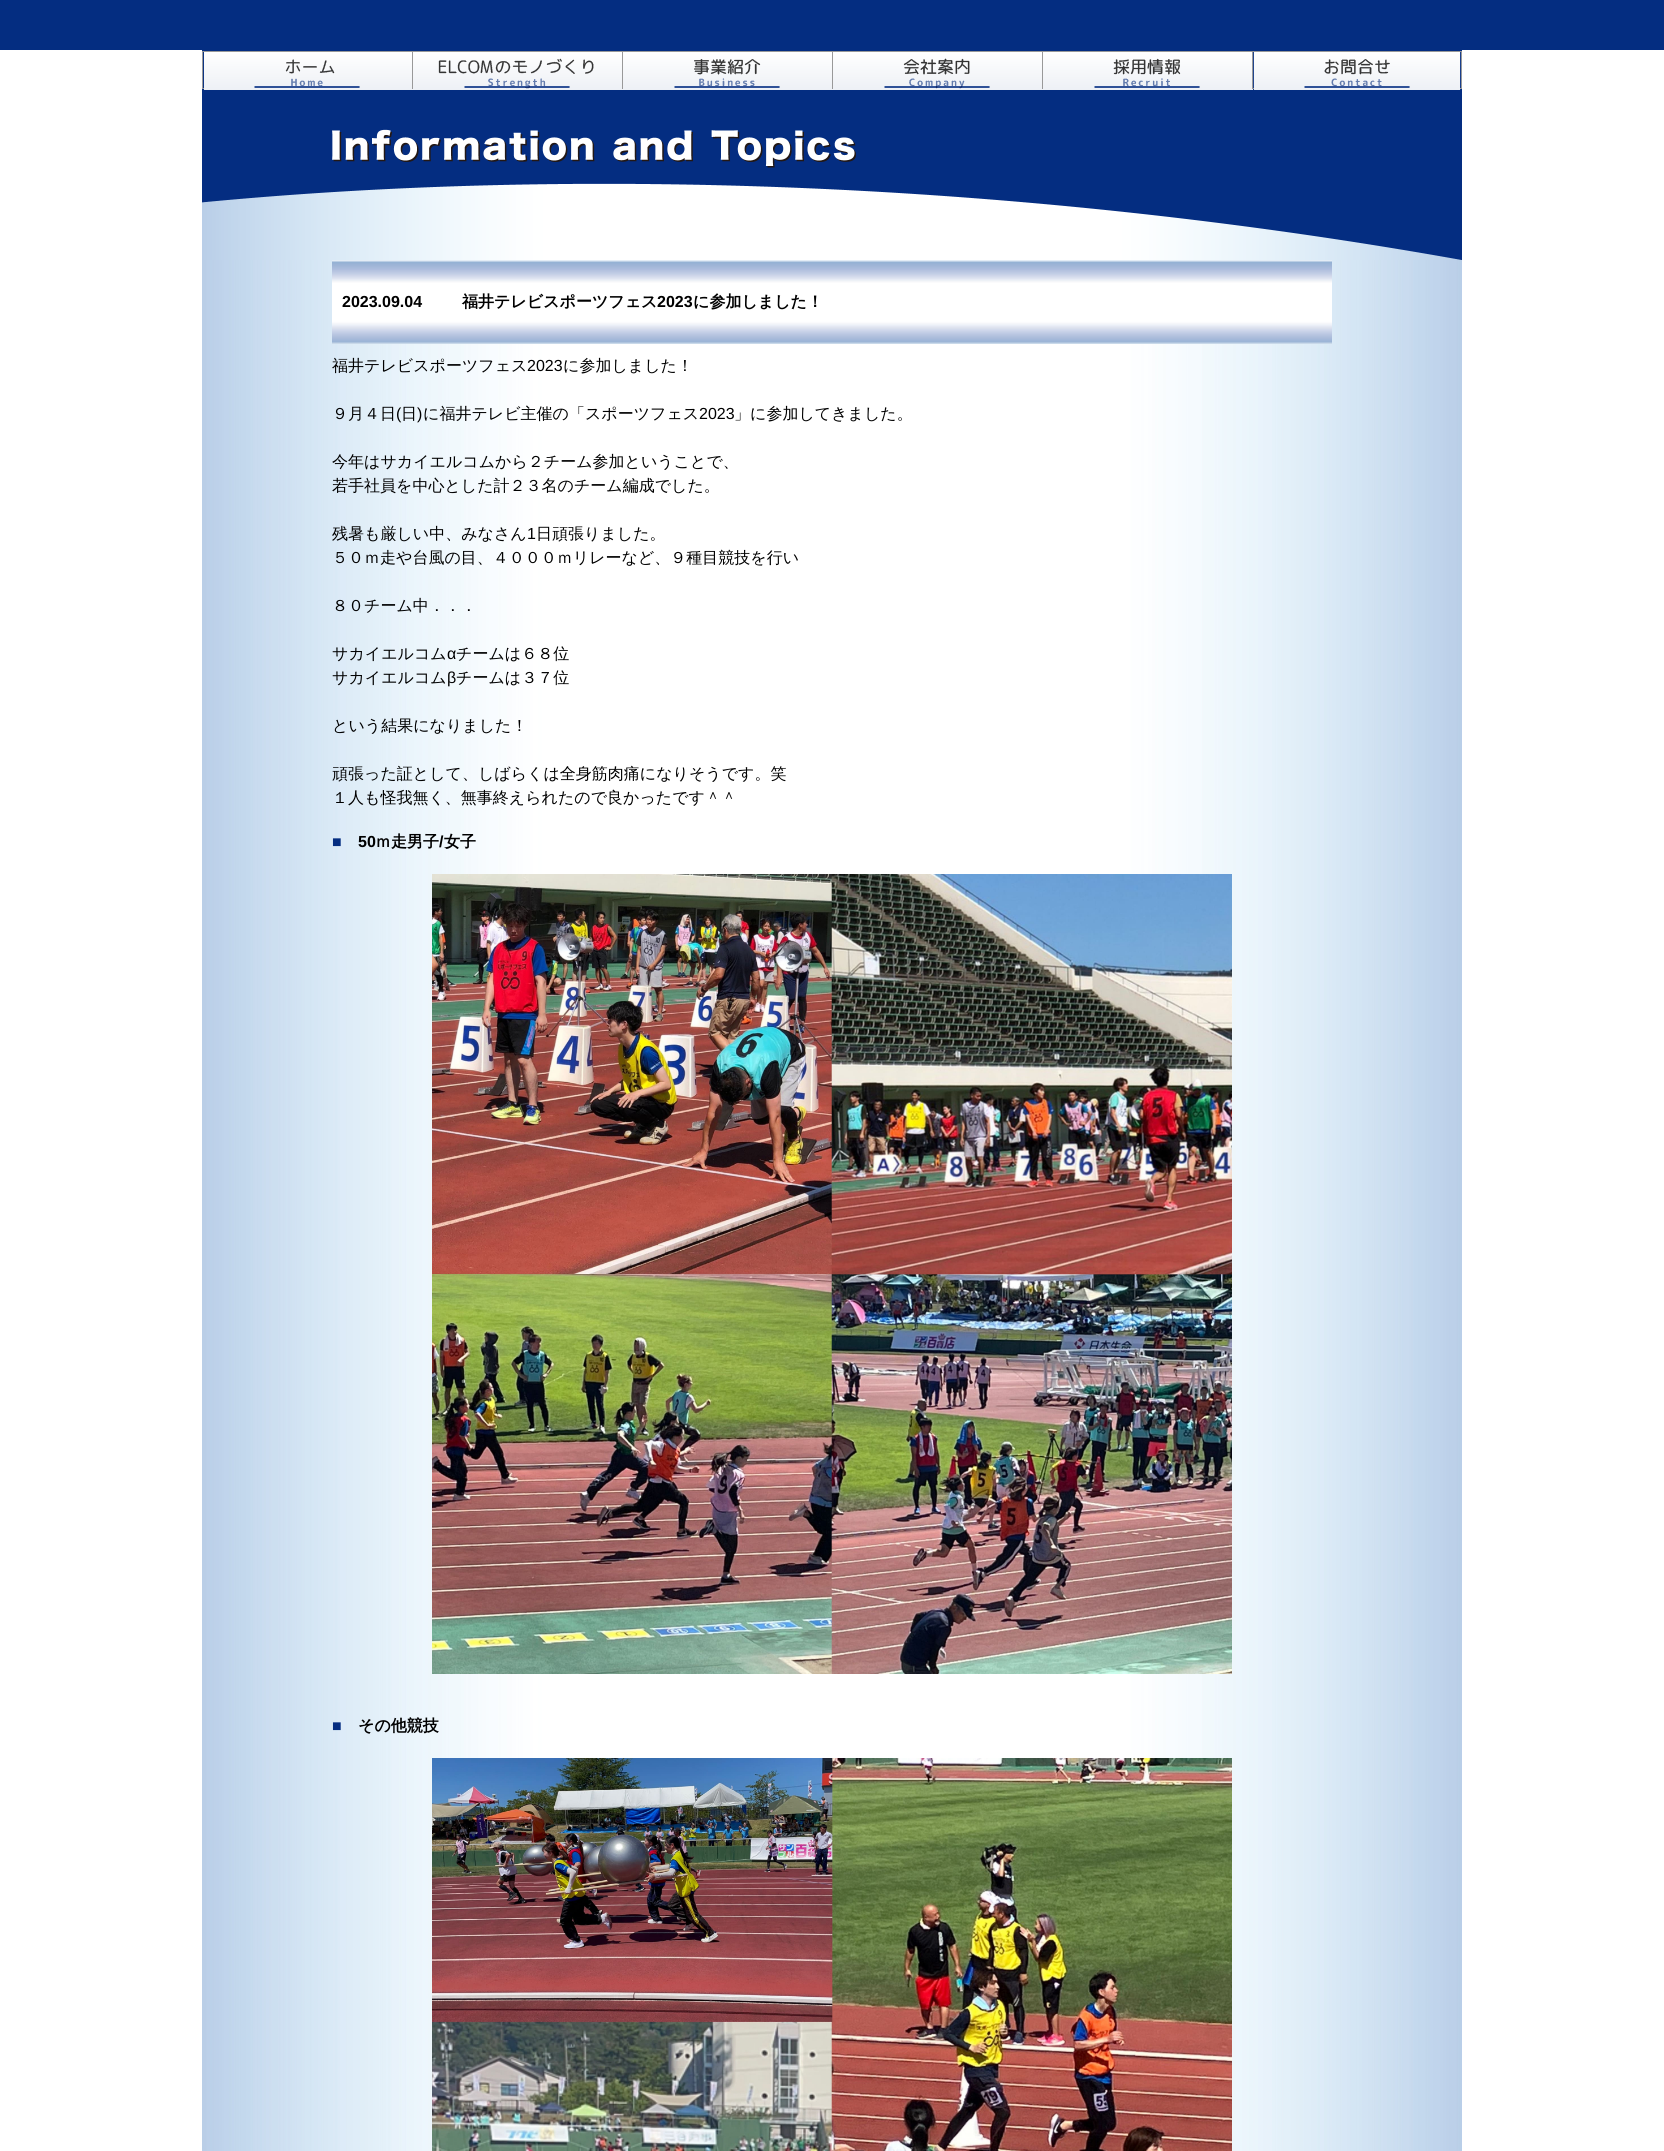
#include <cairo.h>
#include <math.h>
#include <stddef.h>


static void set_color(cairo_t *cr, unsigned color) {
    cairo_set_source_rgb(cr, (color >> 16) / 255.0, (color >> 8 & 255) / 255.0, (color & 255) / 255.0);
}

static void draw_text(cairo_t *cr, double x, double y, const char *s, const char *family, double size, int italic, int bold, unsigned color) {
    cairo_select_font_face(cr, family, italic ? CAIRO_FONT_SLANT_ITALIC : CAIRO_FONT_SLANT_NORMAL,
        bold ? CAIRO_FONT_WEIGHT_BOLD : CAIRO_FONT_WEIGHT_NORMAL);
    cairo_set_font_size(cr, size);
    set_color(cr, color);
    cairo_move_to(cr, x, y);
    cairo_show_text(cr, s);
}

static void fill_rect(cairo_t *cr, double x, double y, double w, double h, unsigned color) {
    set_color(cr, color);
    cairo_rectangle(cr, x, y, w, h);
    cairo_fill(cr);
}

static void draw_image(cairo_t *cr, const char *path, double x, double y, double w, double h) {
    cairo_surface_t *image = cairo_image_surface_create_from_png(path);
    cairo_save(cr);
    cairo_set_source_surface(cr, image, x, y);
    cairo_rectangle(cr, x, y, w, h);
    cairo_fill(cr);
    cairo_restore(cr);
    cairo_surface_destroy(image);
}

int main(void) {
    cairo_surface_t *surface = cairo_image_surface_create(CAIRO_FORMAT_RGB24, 1664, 2151);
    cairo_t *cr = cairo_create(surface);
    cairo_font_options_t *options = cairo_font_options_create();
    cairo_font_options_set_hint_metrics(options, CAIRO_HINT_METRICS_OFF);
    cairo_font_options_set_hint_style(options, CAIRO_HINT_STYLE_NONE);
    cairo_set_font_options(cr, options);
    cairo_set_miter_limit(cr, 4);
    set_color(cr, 0xFFFFFF);
    cairo_paint(cr);
    fill_rect(cr, 0, 0, 1664, 50, 0x042D81);
    draw_image(cr, "assets/img1.png", 202, 50, 210, 40);
    draw_image(cr, "assets/img2.png", 412, 50, 210, 40);
    draw_image(cr, "assets/img3.png", 622, 50, 210, 40);
    draw_image(cr, "assets/img4.png", 832, 50, 210, 40);
    draw_image(cr, "assets/img5.png", 1042, 50, 210, 40);
    draw_image(cr, "assets/img6.png", 1252, 50, 210, 40);
    draw_image(cr, "assets/img7.png", 202, 90, 1260, 170);
    draw_image(cr, "assets/img8.png", 202, 260, 1260, 1891);
    draw_image(cr, "assets/img9.png", 332, 260, 1000, 84);
    draw_text(cr, 342, 307, "2023.09.04", "Liberation Sans", 16, 0, 1, 0x000000);
    draw_text(cr, 462, 307, "福井テレビスポーツフェス", "WenQuanYi Zen Hei", 16, 0, 1, 0x000000);
    draw_text(cr, 657, 307, "2023", "Liberation Sans", 16, 0, 1, 0x000000);
    draw_text(cr, 693, 307, "に参加しました！", "WenQuanYi Zen Hei", 16, 0, 1, 0x000000);
    draw_text(cr, 332, 371, "福井テレビスポーツフェス", "WenQuanYi Zen Hei Medium", 16, 0, 0, 0x000000);
    draw_text(cr, 527, 371, "2023", "Liberation Sans", 16, 0, 0, 0x000000);
    draw_text(cr, 563, 371, "に参加しました！", "WenQuanYi Zen Hei Medium", 16, 0, 0, 0x000000);
    draw_text(cr, 332, 419, "９月４日", "WenQuanYi Zen Hei Medium", 16, 0, 0, 0x000000);
    draw_text(cr, 396, 419, "(", "Liberation Sans", 16, 0, 0, 0x000000);
    draw_text(cr, 401, 419, "日", "WenQuanYi Zen Hei Medium", 16, 0, 0, 0x000000);
    draw_text(cr, 417, 419, ")", "Liberation Sans", 16, 0, 0, 0x000000);
    draw_text(cr, 423, 419, "に福井テレビ主催の「スポーツフェス", "WenQuanYi Zen Hei Medium", 16, 0, 0, 0x000000);
    draw_text(cr, 699, 419, "2023", "Liberation Sans", 16, 0, 0, 0x000000);
    draw_text(cr, 734, 419, "」に参加してきました。", "WenQuanYi Zen Hei Medium", 16, 0, 0, 0x000000);
    draw_text(cr, 332, 467, "今年はサカイエルコムから２チーム参加ということで、", "WenQuanYi Zen Hei Medium", 16, 0, 0, 0x000000);
    draw_text(cr, 332, 491, "若手社員を中心とした計２３名のチーム編成でした。", "WenQuanYi Zen Hei Medium", 16, 0, 0, 0x000000);
    draw_text(cr, 332, 539, "残暑も厳しい中、みなさん", "WenQuanYi Zen Hei Medium", 16, 0, 0, 0x000000);
    draw_text(cr, 527, 539, "1", "Liberation Sans", 16, 0, 0, 0x000000);
    draw_text(cr, 536, 539, "日頑張りました。", "WenQuanYi Zen Hei Medium", 16, 0, 0, 0x000000);
    draw_text(cr, 332, 563, "５０ｍ走や台風の目、４０００ｍリレーなど、９種目競技を行い", "WenQuanYi Zen Hei Medium", 16, 0, 0, 0x000000);
    draw_text(cr, 332, 611, "８０チーム中．．．", "WenQuanYi Zen Hei Medium", 16, 0, 0, 0x000000);
    draw_text(cr, 332, 659, "サカイエルコム", "WenQuanYi Zen Hei Medium", 16, 0, 0, 0x000000);
    draw_text(cr, 447, 659, "α", "Liberation Sans", 16, 0, 0, 0x000000);
    draw_text(cr, 456, 659, "チームは６８位", "WenQuanYi Zen Hei Medium", 16, 0, 0, 0x000000);
    draw_text(cr, 332, 683, "サカイエルコム", "WenQuanYi Zen Hei Medium", 16, 0, 0, 0x000000);
    draw_text(cr, 447, 683, "β", "Liberation Sans", 16, 0, 0, 0x000000);
    draw_text(cr, 456, 683, "チームは３７位", "WenQuanYi Zen Hei Medium", 16, 0, 0, 0x000000);
    draw_text(cr, 332, 731, "という結果になりました！", "WenQuanYi Zen Hei Medium", 16, 0, 0, 0x000000);
    draw_text(cr, 332, 779, "頑張った証として、しばらくは全身筋肉痛になりそうです。笑", "WenQuanYi Zen Hei Medium", 16, 0, 0, 0x000000);
    draw_text(cr, 332, 803, "１人も怪我無く、無事終えられたので良かったです＾＾", "WenQuanYi Zen Hei Medium", 16, 0, 0, 0x000000);
    draw_text(cr, 332, 847, "■", "Liberation Sans", 16, 0, 1, 0x042D81);
    draw_text(cr, 358, 847, "50", "Liberation Sans", 16, 0, 1, 0x000000);
    draw_text(cr, 375, 847, "ｍ走男子", "WenQuanYi Zen Hei", 16, 0, 1, 0x000000);
    draw_text(cr, 439, 847, "/", "Liberation Sans", 16, 0, 1, 0x000000);
    draw_text(cr, 444, 847, "女子", "WenQuanYi Zen Hei", 16, 0, 1, 0x000000);
    draw_image(cr, "assets/img10.png", 432, 874, 800, 800);
    draw_text(cr, 332, 1731, "■", "Liberation Sans", 16, 0, 1, 0x042D81);
    draw_text(cr, 358, 1731, "その他競技", "WenQuanYi Zen Hei", 16, 0, 1, 0x000000);
    draw_image(cr, "assets/img11.png", 432, 1758, 800, 393);
    cairo_surface_write_to_png(surface, "output.png");
    cairo_font_options_destroy(options);
    cairo_destroy(cr);
    cairo_surface_destroy(surface);
    return 0;
}
